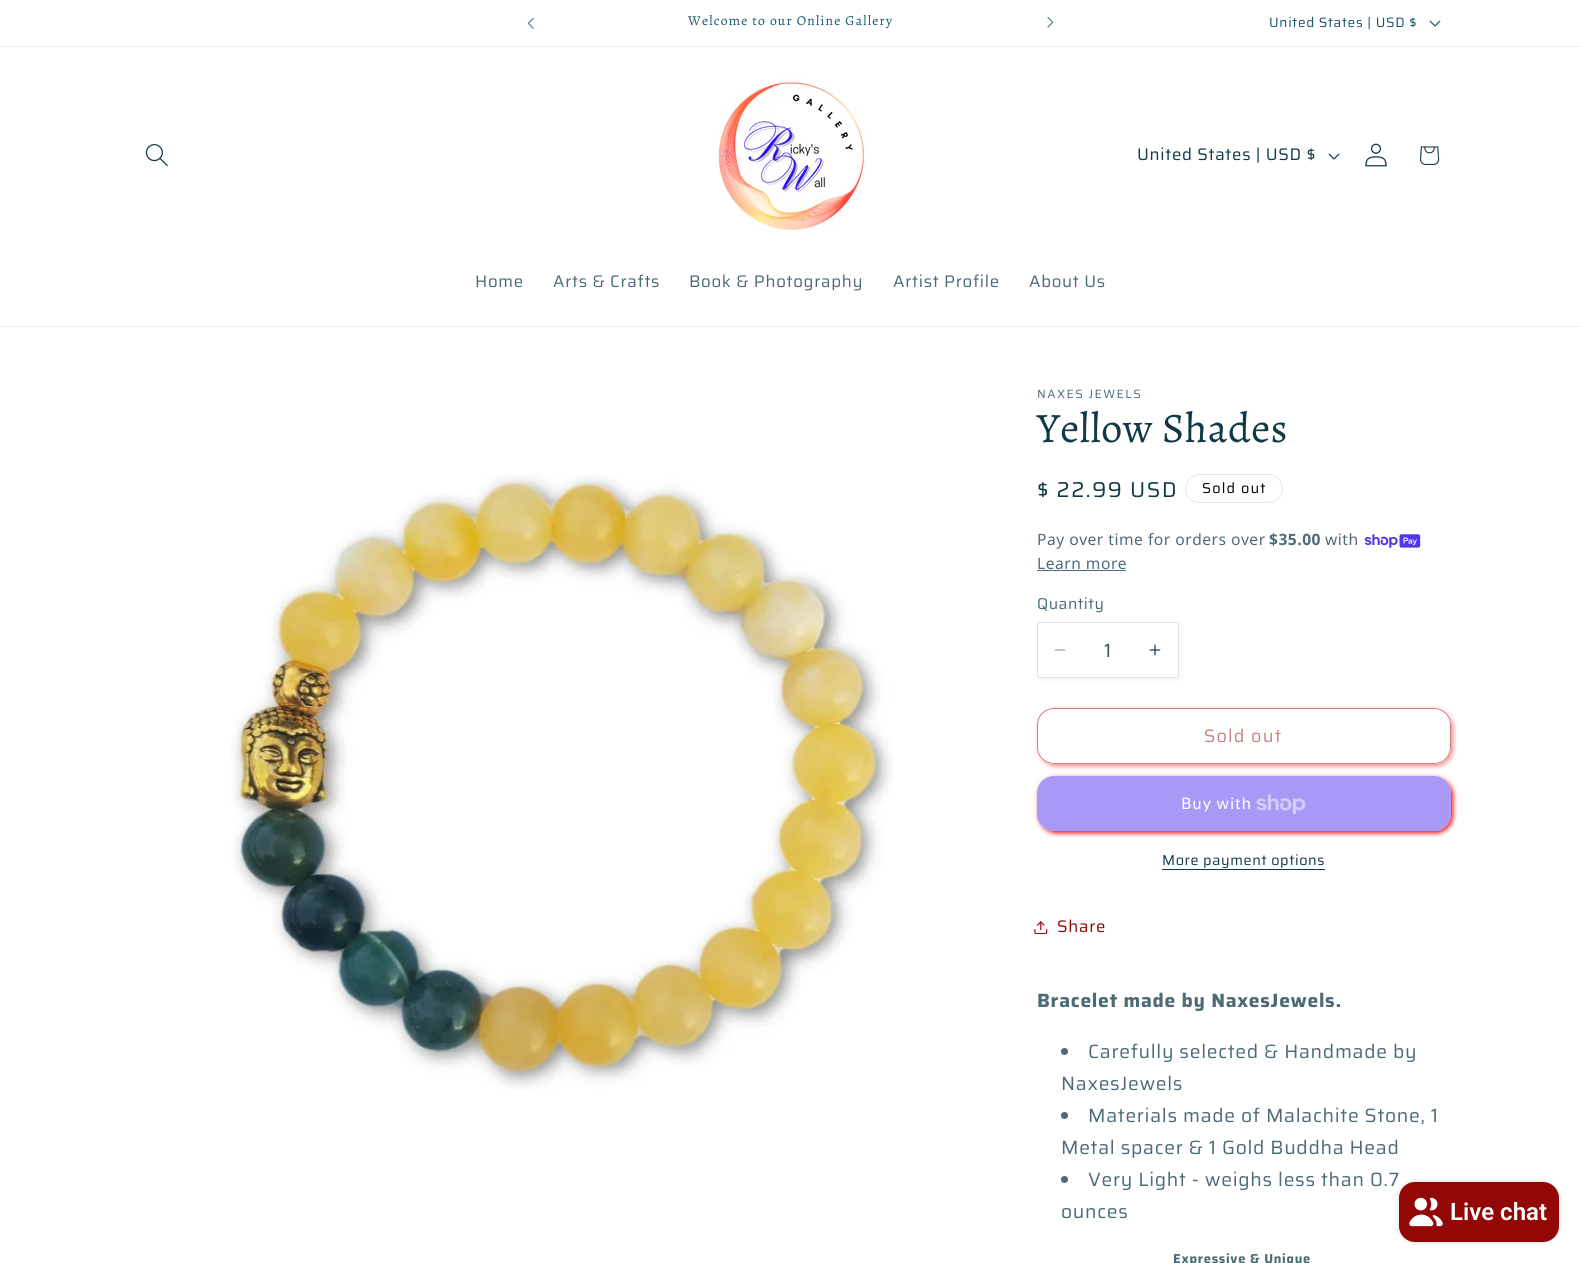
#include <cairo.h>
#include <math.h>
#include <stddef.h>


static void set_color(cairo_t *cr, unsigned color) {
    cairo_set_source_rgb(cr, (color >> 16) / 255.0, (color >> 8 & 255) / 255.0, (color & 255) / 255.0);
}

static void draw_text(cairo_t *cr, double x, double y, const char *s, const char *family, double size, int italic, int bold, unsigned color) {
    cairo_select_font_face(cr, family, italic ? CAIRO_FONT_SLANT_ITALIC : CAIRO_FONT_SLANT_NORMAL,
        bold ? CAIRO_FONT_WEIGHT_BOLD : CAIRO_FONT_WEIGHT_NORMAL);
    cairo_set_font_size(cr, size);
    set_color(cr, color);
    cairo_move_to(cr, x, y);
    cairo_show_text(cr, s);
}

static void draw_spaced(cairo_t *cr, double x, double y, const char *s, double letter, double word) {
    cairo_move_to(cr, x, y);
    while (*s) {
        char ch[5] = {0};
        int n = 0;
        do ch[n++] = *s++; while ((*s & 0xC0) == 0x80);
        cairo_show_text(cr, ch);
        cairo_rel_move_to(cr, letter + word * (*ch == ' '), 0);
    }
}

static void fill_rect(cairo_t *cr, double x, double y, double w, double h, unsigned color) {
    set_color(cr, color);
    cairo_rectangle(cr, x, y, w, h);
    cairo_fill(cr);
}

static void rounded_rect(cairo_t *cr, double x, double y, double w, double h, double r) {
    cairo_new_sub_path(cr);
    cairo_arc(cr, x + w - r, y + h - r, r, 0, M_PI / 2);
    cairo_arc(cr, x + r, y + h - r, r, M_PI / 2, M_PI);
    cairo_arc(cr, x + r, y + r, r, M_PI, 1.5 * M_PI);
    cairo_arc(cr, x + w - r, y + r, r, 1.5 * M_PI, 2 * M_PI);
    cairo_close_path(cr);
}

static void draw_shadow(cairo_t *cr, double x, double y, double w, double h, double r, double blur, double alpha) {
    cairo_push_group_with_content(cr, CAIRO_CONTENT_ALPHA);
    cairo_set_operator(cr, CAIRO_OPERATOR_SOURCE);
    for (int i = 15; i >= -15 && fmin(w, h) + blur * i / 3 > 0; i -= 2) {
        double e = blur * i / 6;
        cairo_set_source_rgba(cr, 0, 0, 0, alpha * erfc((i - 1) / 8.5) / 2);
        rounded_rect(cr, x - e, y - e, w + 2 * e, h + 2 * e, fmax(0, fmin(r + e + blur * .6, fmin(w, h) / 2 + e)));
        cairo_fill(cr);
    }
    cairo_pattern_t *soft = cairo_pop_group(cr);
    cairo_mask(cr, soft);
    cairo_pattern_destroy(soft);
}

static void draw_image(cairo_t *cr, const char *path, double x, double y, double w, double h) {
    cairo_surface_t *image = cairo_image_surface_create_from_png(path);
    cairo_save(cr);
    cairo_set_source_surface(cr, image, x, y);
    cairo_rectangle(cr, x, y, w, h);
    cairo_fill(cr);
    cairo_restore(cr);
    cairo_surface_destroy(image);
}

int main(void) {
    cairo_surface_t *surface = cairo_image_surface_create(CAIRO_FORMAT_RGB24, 1581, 1263);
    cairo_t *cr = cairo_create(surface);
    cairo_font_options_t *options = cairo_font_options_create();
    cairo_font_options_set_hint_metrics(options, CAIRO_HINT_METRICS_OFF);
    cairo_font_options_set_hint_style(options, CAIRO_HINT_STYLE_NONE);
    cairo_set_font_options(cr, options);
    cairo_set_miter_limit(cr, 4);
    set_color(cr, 0xFFFFFF);
    cairo_paint(cr);
    fill_rect(cr, 0, 46, 1581, 1, 0xEDF1F3);
    draw_image(cr, "assets/img1.png", 527, 18, 7, 11);
    cairo_select_font_face(cr, "Alegreya", CAIRO_FONT_SLANT_NORMAL, CAIRO_FONT_WEIGHT_NORMAL);
    cairo_set_font_size(cr, 13.6);
    set_color(cr, 0x18566C);
    draw_spaced(cr, 688, 25, "Welcome to our Online Gallery", 1.2, 0);
    draw_image(cr, "assets/img2.png", 1047, 17, 7, 11);
    cairo_select_font_face(cr, "Saira", CAIRO_FONT_SLANT_NORMAL, CAIRO_FONT_WEIGHT_NORMAL);
    draw_spaced(cr, 1269, 27, "United States | USD $", 0.7, 0);
    draw_image(cr, "assets/img3.png", 1429, 20, 12, 7);
    fill_rect(cr, 0, 326, 1581, 1, 0xECEFF0);
    draw_image(cr, "assets/img4.png", 145, 144, 23, 23);
    draw_image(cr, "assets/img5.png", 714, 76, 152, 156);
    cairo_set_font_size(cr, 16.75);
    set_color(cr, 0x103948);
    draw_spaced(cr, 1137, 160, "United States | USD $", 0.7, 0);
    draw_image(cr, "assets/img6.png", 1328, 153, 12, 7);
    draw_image(cr, "assets/img7.png", 1365, 143, 22, 24);
    draw_image(cr, "assets/img8.png", 1420, 146, 20, 19);
    set_color(cr, 0x4C6B76);
    draw_spaced(cr, 475, 287, "Home", 0.7, 0);
    draw_spaced(cr, 553, 287, "Arts & Crafts", 0.7, 0);
    draw_spaced(cr, 689, 287, "Book & Photography", 0.7, 0);
    draw_spaced(cr, 893, 287, "Artist Profile", 0.7, 0);
    draw_spaced(cr, 1029, 287, "About Us", 0.7, 0);
    draw_image(cr, "assets/img9.png", 231, 475, 662, 615);
    cairo_set_font_size(cr, 12);
    draw_spaced(cr, 1037, 398, "NAXES JEWELS", 1.5, 0);
    cairo_select_font_face(cr, "Alegreya", CAIRO_FONT_SLANT_NORMAL, CAIRO_FONT_WEIGHT_NORMAL);
    cairo_set_font_size(cr, 42);
    set_color(cr, 0x103948);
    draw_spaced(cr, 1037, 442, "Yellow Shades", 0.6, 0);
    cairo_select_font_face(cr, "Saira", CAIRO_FONT_SLANT_NORMAL, CAIRO_FONT_WEIGHT_NORMAL);
    cairo_set_font_size(cr, 21.5);
    draw_spaced(cr, 1037, 497, "$ 22.99 USD", 1.5, 0);
    rounded_rect(cr, 1185.5, 474.5, 97, 28, 14);
    set_color(cr, 0xE6E6E6);
    cairo_set_line_width(cr, 1);
    cairo_stroke(cr);
    cairo_set_font_size(cr, 14.4);
    set_color(cr, 0x000000);
    draw_spaced(cr, 1202, 493, "Sold out", 1.2, 0);
    cairo_select_font_face(cr, "Noto Sans", CAIRO_FONT_SLANT_NORMAL, CAIRO_FONT_WEIGHT_NORMAL);
    cairo_set_font_size(cr, 15.6);
    set_color(cr, 0x4C6B76);
    draw_spaced(cr, 1037, 545, "Pay over time for orders over", 0.5, 0);
    cairo_select_font_face(cr, "Noto Sans", CAIRO_FONT_SLANT_NORMAL, CAIRO_FONT_WEIGHT_BOLD);
    draw_spaced(cr, 1269, 545, "$35.00", 0.5, 0);
    cairo_select_font_face(cr, "Noto Sans", CAIRO_FONT_SLANT_NORMAL, CAIRO_FONT_WEIGHT_NORMAL);
    draw_spaced(cr, 1325, 545, "with", 0.5, 0);
    draw_image(cr, "assets/img10.png", 1364, 534, 57, 14);
    draw_spaced(cr, 1037, 569, "Learn more", 0.5, 0);
    fill_rect(cr, 1037, 570, 89, 1, 0x4C6B76);
    cairo_select_font_face(cr, "Saira", CAIRO_FONT_SLANT_NORMAL, CAIRO_FONT_WEIGHT_NORMAL);
    draw_spaced(cr, 1037, 609, "Quantity", 0.5, 0);
    set_color(cr, 0xFF0101);
    draw_shadow(cr, 1039, 624, 142, 56, 3, 2.5, 0.05);
    set_color(cr, 0xFFFFFF);
    rounded_rect(cr, 1037, 622, 142, 56, 3);
    cairo_fill(cr);
    draw_image(cr, "assets/img11.png", 1054, 649, 12, 2);
    draw_image(cr, "assets/img12.png", 1149, 644, 12, 12);
    rounded_rect(cr, 1037.5, 622.5, 141, 55, 2.5);
    set_color(cr, 0xDBE1E4);
    cairo_stroke(cr);
    draw_text(cr, 1104, 657, "1", "Saira", 19.25, 0, 0, 0x345763);
    cairo_save(cr);
    cairo_set_fill_rule(cr, CAIRO_FILL_RULE_EVEN_ODD);
    cairo_new_path(cr);
    cairo_move_to(cr, 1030, 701);
    cairo_line_to(cr, 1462, 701);
    cairo_line_to(cr, 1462, 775);
    cairo_line_to(cr, 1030, 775);
    cairo_close_path(cr);
    cairo_move_to(cr, 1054, 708);
    cairo_line_to(cr, 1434, 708);
    cairo_curve_to(cr, 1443.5, 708, 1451, 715.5, 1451, 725);
    cairo_line_to(cr, 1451, 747);
    cairo_curve_to(cr, 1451, 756.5, 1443.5, 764, 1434, 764);
    cairo_line_to(cr, 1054, 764);
    cairo_curve_to(cr, 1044.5, 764, 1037, 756.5, 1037, 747);
    cairo_line_to(cr, 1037, 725);
    cairo_curve_to(cr, 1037, 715.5, 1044.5, 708, 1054, 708);
    cairo_close_path(cr);
    cairo_clip(cr);
    set_color(cr, 0xFF8080);
    draw_shadow(cr, 1039, 710, 414, 56, 17, 2.5, 1);
    cairo_restore(cr);
    rounded_rect(cr, 1037.5, 708.5, 413, 55, 16.5);
    set_color(cr, 0xFFFFFF);
    cairo_stroke(cr);
    rounded_rect(cr, 1037.5, 708.5, 413, 55, 16.5);
    set_color(cr, 0xCA8383);
    cairo_stroke(cr);
    cairo_set_font_size(cr, 18);
    draw_spaced(cr, 1204, 742, "Sold out", 1.2, 0);
    cairo_save(cr);
    cairo_set_fill_rule(cr, CAIRO_FILL_RULE_EVEN_ODD);
    cairo_new_path(cr);
    cairo_move_to(cr, 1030, 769);
    cairo_line_to(cr, 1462, 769);
    cairo_line_to(cr, 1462, 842);
    cairo_line_to(cr, 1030, 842);
    cairo_close_path(cr);
    cairo_move_to(cr, 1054, 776);
    cairo_line_to(cr, 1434, 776);
    cairo_curve_to(cr, 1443.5, 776, 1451, 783.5, 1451, 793);
    cairo_line_to(cr, 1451, 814);
    cairo_curve_to(cr, 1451, 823.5, 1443.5, 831, 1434, 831);
    cairo_line_to(cr, 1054, 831);
    cairo_curve_to(cr, 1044.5, 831, 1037, 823.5, 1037, 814);
    cairo_line_to(cr, 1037, 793);
    cairo_curve_to(cr, 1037, 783.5, 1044.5, 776, 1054, 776);
    cairo_close_path(cr);
    cairo_clip(cr);
    set_color(cr, 0xFF0101);
    draw_shadow(cr, 1039, 778, 414, 55, 17, 2.5, 1);
    cairo_restore(cr);
    cairo_set_source_rgba(cr, 0.329, 0.2, 0.922, 0.5);
    rounded_rect(cr, 1037, 776, 414, 55, 17);
    cairo_fill(cr);
    cairo_select_font_face(cr, "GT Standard", CAIRO_FONT_SLANT_NORMAL, CAIRO_FONT_WEIGHT_NORMAL);
    cairo_set_font_size(cr, 16);
    set_color(cr, 0xFFFFFF);
    draw_spaced(cr, 1181, 809, "Buy with", 0.7, 0);
    draw_image(cr, "assets/img13.png", 1256, 794, 50, 20);
    cairo_select_font_face(cr, "Saira", CAIRO_FONT_SLANT_NORMAL, CAIRO_FONT_WEIGHT_NORMAL);
    cairo_set_font_size(cr, 14.4);
    set_color(cr, 0x103948);
    draw_spaced(cr, 1162, 865, "More payment options", 0.6, 0);
    fill_rect(cr, 1162, 869, 163, 1, 0x103948);
    draw_image(cr, "assets/img14.png", 1034, 921, 14, 13);
    cairo_set_font_size(cr, 16.75);
    set_color(cr, 0x940707);
    draw_spaced(cr, 1057, 932, "Share", 0.7, 0);
    cairo_select_font_face(cr, "Saira", CAIRO_FONT_SLANT_NORMAL, CAIRO_FONT_WEIGHT_BOLD);
    cairo_set_font_size(cr, 19.25);
    set_color(cr, 0x4C6B76);
    draw_spaced(cr, 1037, 1007, "Bracelet made by NaxesJewels.", 0.7, 0);
    cairo_new_path(cr);
    cairo_arc(cr, 1064.5, 1051.5, 3.5, 0, 2 * M_PI);
    cairo_fill(cr);
    cairo_select_font_face(cr, "Saira", CAIRO_FONT_SLANT_NORMAL, CAIRO_FONT_WEIGHT_NORMAL);
    draw_spaced(cr, 1088, 1058, "Carefully selected & Handmade by", 0.7, 0);
    draw_spaced(cr, 1061, 1090, "NaxesJewels", 0.7, 0);
    cairo_new_path(cr);
    cairo_arc(cr, 1064.5, 1115.5, 3.5, 0, 2 * M_PI);
    cairo_fill(cr);
    draw_spaced(cr, 1088, 1122, "Materials made of Malachite Stone, 1", 0.7, 0);
    draw_spaced(cr, 1061, 1154, "Metal spacer & 1 Gold Buddha Head", 0.7, 0);
    cairo_new_path(cr);
    cairo_arc(cr, 1064.5, 1179.5, 3.5, 0, 2 * M_PI);
    cairo_fill(cr);
    draw_spaced(cr, 1088, 1186, "Very Light - weighs less than 0.7", 0.7, 0);
    draw_spaced(cr, 1061, 1218, "ounces", 0.7, 0);
    cairo_select_font_face(cr, "Saira", CAIRO_FONT_SLANT_NORMAL, CAIRO_FONT_WEIGHT_BOLD);
    cairo_set_font_size(cr, 12.9);
    draw_spaced(cr, 1173, 1263, "Expressive & Unique", 0.7, 0);
    set_color(cr, 0x000000);
    draw_shadow(cr, 1399, 1182, 160, 60, 16, 2.5, 0.15);
    set_color(cr, 0x940707);
    rounded_rect(cr, 1399, 1182, 160, 60, 16);
    cairo_fill(cr);
    draw_image(cr, "assets/img15.png", 1409, 1197, 34, 30);
    draw_text(cr, 1450, 1220, "Live chat", "Roboto SemiBold", 24, 0, 0, 0xFFFFFF);
    cairo_surface_write_to_png(surface, "output.png");
    cairo_font_options_destroy(options);
    cairo_destroy(cr);
    cairo_surface_destroy(surface);
    return 0;
}
